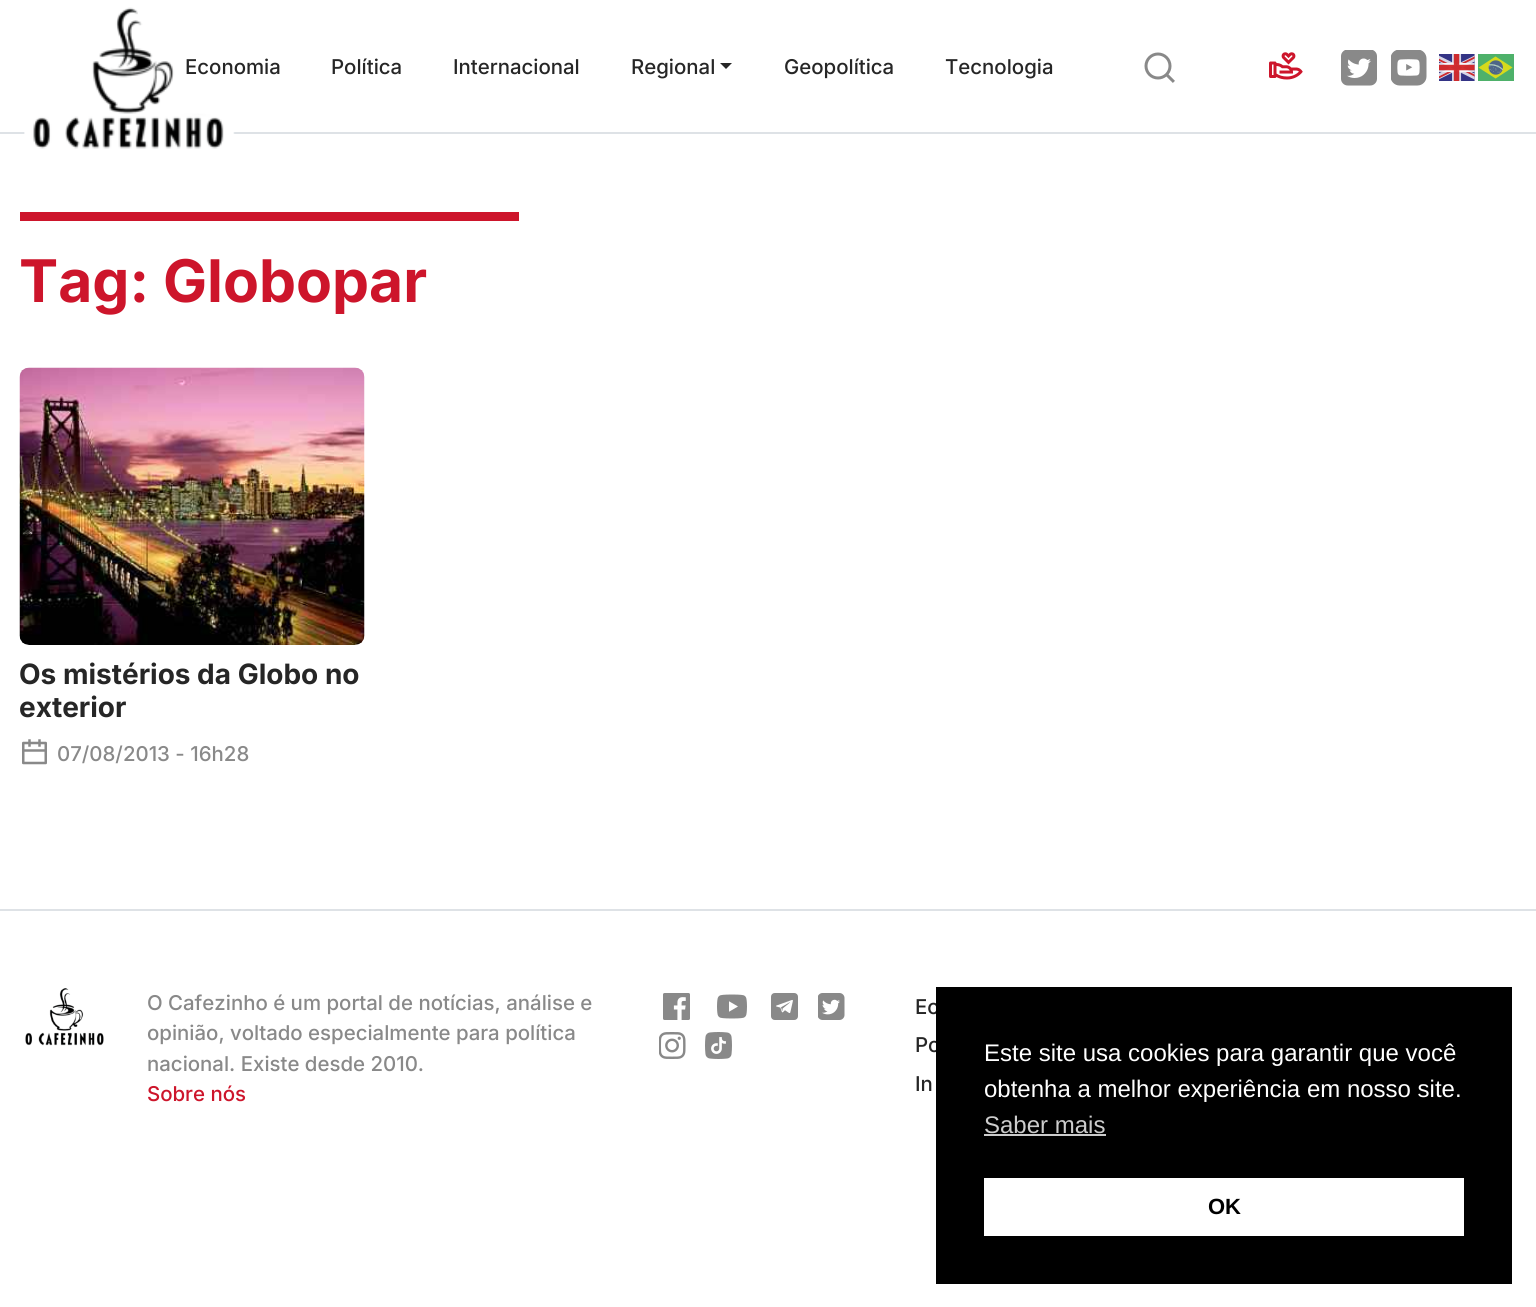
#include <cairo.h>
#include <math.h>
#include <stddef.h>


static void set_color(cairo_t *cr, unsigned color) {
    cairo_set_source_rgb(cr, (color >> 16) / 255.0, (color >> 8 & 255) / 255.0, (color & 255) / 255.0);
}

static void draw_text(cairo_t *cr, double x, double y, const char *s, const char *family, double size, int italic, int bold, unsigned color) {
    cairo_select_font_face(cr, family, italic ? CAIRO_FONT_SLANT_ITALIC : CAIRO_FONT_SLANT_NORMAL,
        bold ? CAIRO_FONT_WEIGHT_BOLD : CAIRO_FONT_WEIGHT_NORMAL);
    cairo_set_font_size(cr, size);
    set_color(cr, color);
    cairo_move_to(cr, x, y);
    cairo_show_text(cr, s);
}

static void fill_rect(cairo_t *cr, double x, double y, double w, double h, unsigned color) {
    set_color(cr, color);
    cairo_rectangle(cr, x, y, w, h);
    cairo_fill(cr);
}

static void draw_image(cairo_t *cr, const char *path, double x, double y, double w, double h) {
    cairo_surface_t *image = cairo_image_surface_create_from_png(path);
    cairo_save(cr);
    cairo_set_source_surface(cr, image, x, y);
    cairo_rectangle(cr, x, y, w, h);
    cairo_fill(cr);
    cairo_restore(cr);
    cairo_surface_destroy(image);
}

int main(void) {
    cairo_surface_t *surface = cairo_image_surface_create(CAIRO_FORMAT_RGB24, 1536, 1307);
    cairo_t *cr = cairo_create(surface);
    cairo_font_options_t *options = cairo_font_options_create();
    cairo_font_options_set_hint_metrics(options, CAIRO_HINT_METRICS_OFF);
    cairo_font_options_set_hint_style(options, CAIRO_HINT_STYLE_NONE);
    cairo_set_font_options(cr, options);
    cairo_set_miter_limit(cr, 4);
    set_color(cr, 0xFFFFFF);
    cairo_paint(cr);
    fill_rect(cr, 0, 132, 1536, 2, 0xDEE2E6);
    draw_text(cr, 185, 74, "Economia", "Inter Medium", 20.4, 0, 0, 0x262626);
    draw_image(cr, "assets/img1.png", 24, 7, 211, 142);
    draw_text(cr, 331, 74, "Política", "Inter Medium", 20.4, 0, 0, 0x262626);
    draw_text(cr, 453, 74, "Internacional", "Inter Medium", 20.4, 0, 0, 0x262626);
    draw_text(cr, 631, 74, "Regional", "Inter Medium", 20.4, 0, 0, 0x262626);
    cairo_new_path(cr);
    cairo_move_to(cr, 720, 63);
    cairo_line_to(cr, 732, 63);
    cairo_line_to(cr, 726, 69);
    cairo_close_path(cr);
    cairo_fill(cr);
    draw_text(cr, 784, 74, "Geopolítica", "Inter Medium", 20.4, 0, 0, 0x262626);
    draw_text(cr, 945, 74, "Tecnologia", "Inter Medium", 20.4, 0, 0, 0x262626);
    draw_image(cr, "assets/img2.png", 1144, 52, 31, 31);
    draw_image(cr, "assets/img3.png", 1269, 52, 34, 28);
    draw_image(cr, "assets/img4.png", 1341, 50, 36, 36);
    draw_image(cr, "assets/img5.png", 1391, 50, 36, 36);
    draw_image(cr, "assets/img6.png", 1439, 54, 36, 27);
    draw_image(cr, "assets/img7.png", 1478, 54, 36, 27);
    fill_rect(cr, 20, 212, 499, 9, 0xCD152B);
    draw_text(cr, 19, 302, "Tag: Globopar", "Inter", 58.75, 0, 1, 0xCD152B);
    draw_image(cr, "assets/img8.png", 19, 367, 346, 278);
    draw_text(cr, 19, 684, "Os mistérios da Globo no", "Inter", 28, 0, 1, 0x262626);
    draw_text(cr, 19, 717, "exterior", "Inter", 28, 0, 1, 0x262626);
    draw_image(cr, "assets/img9.png", 22, 739, 25, 26);
    draw_text(cr, 57, 761, "07/08/2013 - 16h28", "Inter Medium", 20.4, 0, 0, 0x898989);
    fill_rect(cr, 0, 909, 1536, 2, 0xDEE2E6);
    draw_image(cr, "assets/img10.png", 25, 988, 79, 58);
    draw_text(cr, 147, 1010, "O Cafezinho é um portal de notícias, análise e", "Inter Medium", 20.4, 0, 0, 0x898989);
    draw_text(cr, 147, 1040, "opinião, voltado especialmente para política", "Inter Medium", 20.4, 0, 0, 0x898989);
    draw_text(cr, 147, 1071, "nacional. Existe desde 2010.", "Inter Medium", 20.4, 0, 0, 0x898989);
    draw_text(cr, 147, 1101, "Sobre nós", "Inter Medium", 20.4, 0, 0, 0xCD152B);
    draw_image(cr, "assets/img11.png", 663, 993, 27, 27);
    draw_image(cr, "assets/img12.png", 717, 994, 30, 25);
    draw_image(cr, "assets/img13.png", 771, 993, 27, 27);
    draw_image(cr, "assets/img14.png", 818, 993, 27, 27);
    draw_image(cr, "assets/img15.png", 659, 1032, 27, 27);
    draw_image(cr, "assets/img16.png", 705, 1032, 27, 27);
    draw_text(cr, 915, 1014, "Ec", "Inter Medium", 20.4, 0, 0, 0x262626);
    draw_text(cr, 915, 1052, "Po", "Inter Medium", 20.4, 0, 0, 0x262626);
    draw_text(cr, 915, 1091, "In", "Inter Medium", 20.4, 0, 0, 0x262626);
    fill_rect(cr, 936, 987, 576, 297, 0x000000);
    draw_text(cr, 984, 1061, "Este site usa cookies para garantir que você", "Liberation Sans", 24, 0, 0, 0xFFFFFF);
    draw_text(cr, 984, 1097, "obtenha a melhor experiência em nosso site.", "Liberation Sans", 24, 0, 0, 0xFFFFFF);
    draw_text(cr, 984, 1133, "Saber mais", "Liberation Sans", 24, 0, 0, 0xCCCCCC);
    fill_rect(cr, 984, 1134, 122, 2, 0xCCCCCC);
    fill_rect(cr, 984, 1178, 480, 58, 0xFFFFFF);
    draw_text(cr, 1208, 1214, "OK", "Liberation Sans", 22, 0, 1, 0x000000);
    cairo_surface_write_to_png(surface, "output.png");
    cairo_font_options_destroy(options);
    cairo_destroy(cr);
    cairo_surface_destroy(surface);
    return 0;
}
